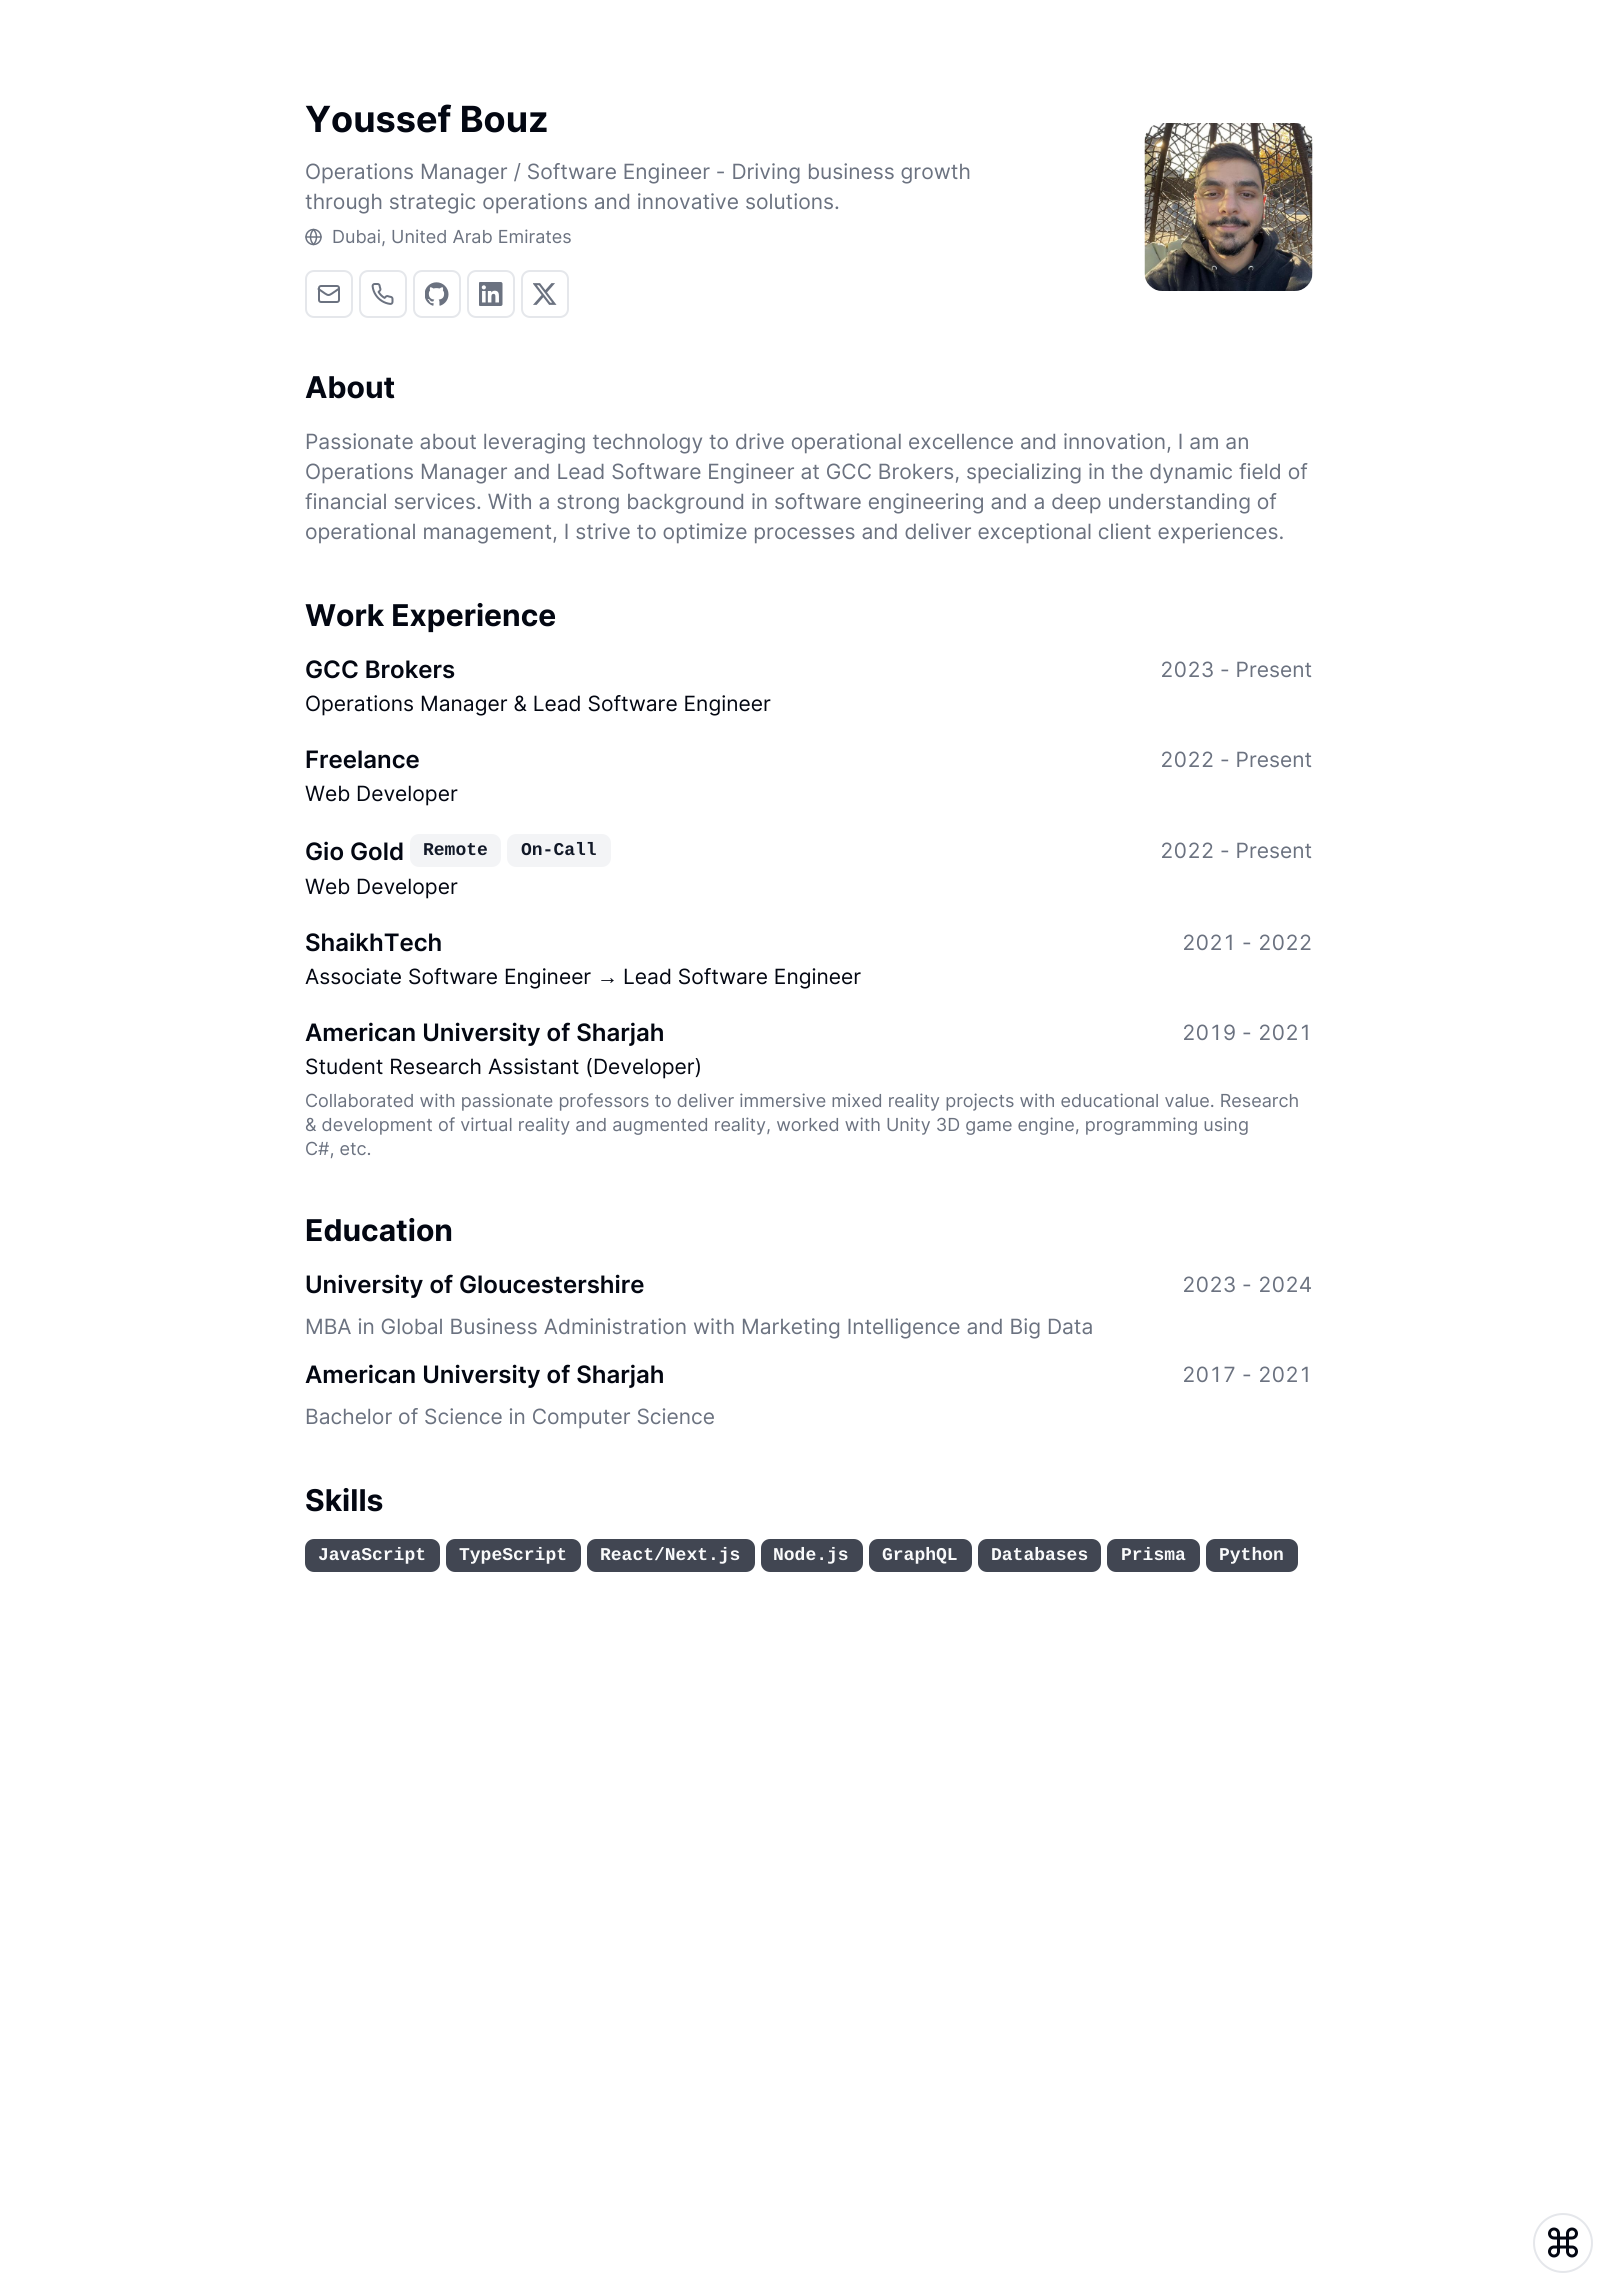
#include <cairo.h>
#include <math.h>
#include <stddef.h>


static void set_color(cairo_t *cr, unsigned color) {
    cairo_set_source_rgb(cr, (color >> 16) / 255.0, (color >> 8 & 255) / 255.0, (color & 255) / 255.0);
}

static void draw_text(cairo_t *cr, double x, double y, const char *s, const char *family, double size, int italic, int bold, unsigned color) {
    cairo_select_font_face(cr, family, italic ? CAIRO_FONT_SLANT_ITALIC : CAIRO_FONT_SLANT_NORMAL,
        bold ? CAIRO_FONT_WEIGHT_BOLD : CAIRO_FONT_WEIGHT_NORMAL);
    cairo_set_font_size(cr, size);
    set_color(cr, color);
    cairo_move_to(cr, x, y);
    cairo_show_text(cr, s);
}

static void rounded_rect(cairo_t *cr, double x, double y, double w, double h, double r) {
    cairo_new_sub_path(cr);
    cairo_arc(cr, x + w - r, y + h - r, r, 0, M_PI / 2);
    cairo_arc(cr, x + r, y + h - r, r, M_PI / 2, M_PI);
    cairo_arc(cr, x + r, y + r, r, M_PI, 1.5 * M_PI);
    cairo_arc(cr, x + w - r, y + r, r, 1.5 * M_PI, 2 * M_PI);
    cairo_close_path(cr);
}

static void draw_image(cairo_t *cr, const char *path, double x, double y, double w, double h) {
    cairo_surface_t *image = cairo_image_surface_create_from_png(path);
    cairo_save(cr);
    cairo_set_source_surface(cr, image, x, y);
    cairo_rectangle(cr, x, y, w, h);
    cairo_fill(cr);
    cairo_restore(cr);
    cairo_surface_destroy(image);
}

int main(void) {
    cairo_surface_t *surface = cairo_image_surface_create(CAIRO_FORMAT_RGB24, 1616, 2296);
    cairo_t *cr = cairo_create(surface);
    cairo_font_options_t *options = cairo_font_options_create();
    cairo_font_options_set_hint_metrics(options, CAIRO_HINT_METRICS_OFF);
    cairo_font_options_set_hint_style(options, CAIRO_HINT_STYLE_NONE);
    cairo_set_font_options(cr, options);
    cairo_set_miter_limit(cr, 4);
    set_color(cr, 0xFFFFFF);
    cairo_paint(cr);
    draw_text(cr, 305, 132, "Youssef Bouz", "Inter", 36, 0, 1, 0x030712);
    draw_text(cr, 305, 179, "Operations Manager / Software Engineer - Driving business growth", "Inter", 21, 0, 0, 0x6B7280);
    draw_text(cr, 305, 209, "through strategic operations and innovative solutions.", "Inter", 21, 0, 0, 0x6B7280);
    draw_image(cr, "assets/img1.png", 305, 228, 17, 18);
    draw_text(cr, 332, 243, "Dubai, United Arab Emirates", "Inter", 18, 0, 0, 0x6B7280);
    rounded_rect(cr, 306, 271, 46, 46, 8);
    set_color(cr, 0xE5E7EB);
    cairo_stroke(cr);
    rounded_rect(cr, 319, 286, 20, 16, 2);
    set_color(cr, 0x6B7280);
    cairo_stroke(cr);
    cairo_new_path(cr);
    cairo_move_to(cr, 338.5, 289);
    cairo_curve_to(cr, 326.5, 297, 330.5, 297, 318.5, 289);
    cairo_set_line_cap(cr, CAIRO_LINE_CAP_ROUND);
    cairo_set_line_join(cr, CAIRO_LINE_JOIN_ROUND);
    cairo_stroke(cr);
    rounded_rect(cr, 360, 271, 46, 46, 8);
    set_color(cr, 0xE5E7EB);
    cairo_set_line_cap(cr, CAIRO_LINE_CAP_BUTT);
    cairo_set_line_join(cr, CAIRO_LINE_JOIN_MITER);
    cairo_stroke(cr);
    draw_image(cr, "assets/img2.png", 371, 283, 23, 22);
    rounded_rect(cr, 414, 271, 46, 46, 8);
    cairo_stroke(cr);
    draw_image(cr, "assets/img3.png", 425, 282, 24, 24);
    rounded_rect(cr, 468, 271, 46, 46, 8);
    cairo_stroke(cr);
    draw_image(cr, "assets/img4.png", 479, 282, 24, 24);
    rounded_rect(cr, 522, 271, 46, 46, 8);
    cairo_stroke(cr);
    draw_image(cr, "assets/img5.png", 533, 283, 24, 22);
    draw_image(cr, "assets/img6.png", 1144, 123, 169, 168);
    draw_text(cr, 305, 398, "About", "Inter", 30, 0, 1, 0x030712);
    draw_text(cr, 305, 449, "Passionate about leveraging technology to drive operational excellence and innovation, I am an", "Inter", 21, 0, 0, 0x6B7280);
    draw_text(cr, 305, 479, "Operations Manager and Lead Software Engineer at GCC Brokers, specializing in the dynamic field of", "Inter", 21, 0, 0, 0x6B7280);
    draw_text(cr, 305, 509, "financial services. With a strong background in software engineering and a deep understanding of", "Inter", 21, 0, 0, 0x6B7280);
    draw_text(cr, 305, 539, "operational management, I strive to optimize processes and deliver exceptional client experiences.", "Inter", 21, 0, 0, 0x6B7280);
    draw_text(cr, 305, 626, "Work Experience", "Inter", 30, 0, 1, 0x030712);
    draw_text(cr, 305, 678, "GCC Brokers", "Inter SemiBold", 24, 0, 0, 0x030712);
    draw_text(cr, 1160, 677, "2023", "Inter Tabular", 21, 0, 0, 0x6B7280);
    draw_text(cr, 1220, 677, "- Present", "Inter", 21, 0, 0, 0x6B7280);
    draw_text(cr, 305, 711, "Operations Manager & Lead Software Engineer", "Inter", 21, 0, 0, 0x030712);
    draw_text(cr, 305, 768, "Freelance", "Inter SemiBold", 24, 0, 0, 0x030712);
    draw_text(cr, 1160, 767, "2022", "Inter Tabular", 21, 0, 0, 0x6B7280);
    draw_text(cr, 1220, 767, "- Present", "Inter", 21, 0, 0, 0x6B7280);
    draw_text(cr, 305, 801, "Web Developer", "Inter", 21, 0, 0, 0x030712);
    draw_text(cr, 305, 860, "Gio Gold", "Inter SemiBold", 24, 0, 0, 0x030712);
    set_color(cr, 0xF3F4F6);
    rounded_rect(cr, 410, 834, 91, 33, 9);
    cairo_fill(cr);
    draw_text(cr, 423, 855, "Remote", "Liberation Mono", 18, 0, 1, 0x111827);
    set_color(cr, 0xF3F4F6);
    rounded_rect(cr, 507, 834, 104, 33, 9);
    cairo_fill(cr);
    draw_text(cr, 521, 855, "On-Call", "Liberation Mono", 18, 0, 1, 0x111827);
    draw_text(cr, 1160, 858, "2022", "Inter Tabular", 21, 0, 0, 0x6B7280);
    draw_text(cr, 1220, 858, "- Present", "Inter", 21, 0, 0, 0x6B7280);
    draw_text(cr, 305, 894, "Web Developer", "Inter", 21, 0, 0, 0x030712);
    draw_text(cr, 305, 951, "ShaikhTech", "Inter SemiBold", 24, 0, 0, 0x030712);
    draw_text(cr, 1182, 950, "2021", "Inter Tabular", 21, 0, 0, 0x6B7280);
    draw_text(cr, 1242, 950, "-", "Inter", 21, 0, 0, 0x6B7280);
    draw_text(cr, 1258, 950, "2022", "Inter Tabular", 21, 0, 0, 0x6B7280);
    draw_text(cr, 305, 984, "Associate Software Engineer", "Inter", 21, 0, 0, 0x030712);
    draw_text(cr, 597, 984, "→", "Liberation Serif", 21, 0, 0, 0x030712);
    draw_text(cr, 623, 984, "Lead Software Engineer", "Inter", 21, 0, 0, 0x030712);
    draw_text(cr, 305, 1041, "American University of Sharjah", "Inter SemiBold", 24, 0, 0, 0x030712);
    draw_text(cr, 1182, 1040, "2019", "Inter Tabular", 21, 0, 0, 0x6B7280);
    draw_text(cr, 1242, 1040, "-", "Inter", 21, 0, 0, 0x6B7280);
    draw_text(cr, 1258, 1040, "2021", "Inter Tabular", 21, 0, 0, 0x6B7280);
    draw_text(cr, 305, 1074, "Student Research Assistant (Developer)", "Inter", 21, 0, 0, 0x030712);
    draw_text(cr, 305, 1107, "Collaborated with passionate professors to deliver immersive mixed reality projects with educational value. Research", "Inter", 18, 0, 0, 0x6B7280);
    draw_text(cr, 305, 1131, "& development of virtual reality and augmented reality, worked with Unity 3D game engine, programming using", "Inter", 18, 0, 0, 0x6B7280);
    draw_text(cr, 305, 1155, "C#, etc.", "Inter", 18, 0, 0, 0x6B7280);
    draw_text(cr, 305, 1241, "Education", "Inter", 30, 0, 1, 0x030712);
    draw_text(cr, 305, 1293, "University of Gloucestershire", "Inter SemiBold", 24, 0, 0, 0x030712);
    draw_text(cr, 1182, 1292, "2023", "Inter Tabular", 21, 0, 0, 0x6B7280);
    draw_text(cr, 1242, 1292, "-", "Inter", 21, 0, 0, 0x6B7280);
    draw_text(cr, 1258, 1292, "2024", "Inter Tabular", 21, 0, 0, 0x6B7280);
    draw_text(cr, 305, 1334, "MBA in Global Business Administration with Marketing Intelligence and Big Data", "Inter", 21, 0, 0, 0x6B7280);
    draw_text(cr, 305, 1383, "American University of Sharjah", "Inter SemiBold", 24, 0, 0, 0x030712);
    draw_text(cr, 1182, 1382, "2017", "Inter Tabular", 21, 0, 0, 0x6B7280);
    draw_text(cr, 1242, 1382, "-", "Inter", 21, 0, 0, 0x6B7280);
    draw_text(cr, 1258, 1382, "2021", "Inter Tabular", 21, 0, 0, 0x6B7280);
    draw_text(cr, 305, 1424, "Bachelor of Science in Computer Science", "Inter", 21, 0, 0, 0x6B7280);
    draw_text(cr, 305, 1511, "Skills", "Inter", 30, 0, 1, 0x030712);
    set_color(cr, 0x414652);
    rounded_rect(cr, 305, 1539, 135, 33, 9);
    cairo_fill(cr);
    draw_text(cr, 318, 1560, "JavaScript", "Liberation Mono", 18, 0, 1, 0xF9FAFB);
    set_color(cr, 0x414652);
    rounded_rect(cr, 446, 1539, 135, 33, 9);
    cairo_fill(cr);
    draw_text(cr, 459, 1560, "TypeScript", "Liberation Mono", 18, 0, 1, 0xF9FAFB);
    set_color(cr, 0x414652);
    rounded_rect(cr, 587, 1539, 168, 33, 9);
    cairo_fill(cr);
    draw_text(cr, 600, 1560, "React/Next.js", "Liberation Mono", 18, 0, 1, 0xF9FAFB);
    set_color(cr, 0x414652);
    rounded_rect(cr, 761, 1539, 102, 33, 9);
    cairo_fill(cr);
    draw_text(cr, 773, 1560, "Node.js", "Liberation Mono", 18, 0, 1, 0xF9FAFB);
    set_color(cr, 0x414652);
    rounded_rect(cr, 869, 1539, 103, 33, 9);
    cairo_fill(cr);
    draw_text(cr, 882, 1560, "GraphQL", "Liberation Mono", 18, 0, 1, 0xF9FAFB);
    set_color(cr, 0x414652);
    rounded_rect(cr, 978, 1539, 123, 33, 9);
    cairo_fill(cr);
    draw_text(cr, 991, 1560, "Databases", "Liberation Mono", 18, 0, 1, 0xF9FAFB);
    set_color(cr, 0x414652);
    rounded_rect(cr, 1107, 1539, 93, 33, 9);
    cairo_fill(cr);
    draw_text(cr, 1121, 1560, "Prisma", "Liberation Mono", 18, 0, 1, 0xF9FAFB);
    set_color(cr, 0x414652);
    rounded_rect(cr, 1206, 1539, 92, 33, 9);
    cairo_fill(cr);
    draw_text(cr, 1219, 1560, "Python", "Liberation Mono", 18, 0, 1, 0xF9FAFB);
    cairo_new_path(cr);
    cairo_arc(cr, 1563, 2243, 29, 0, 2 * M_PI);
    set_color(cr, 0xE5E7EB);
    cairo_stroke(cr);
    draw_image(cr, "assets/img7.png", 1548, 2227, 30, 31);
    cairo_surface_write_to_png(surface, "output.png");
    cairo_font_options_destroy(options);
    cairo_destroy(cr);
    cairo_surface_destroy(surface);
    return 0;
}
